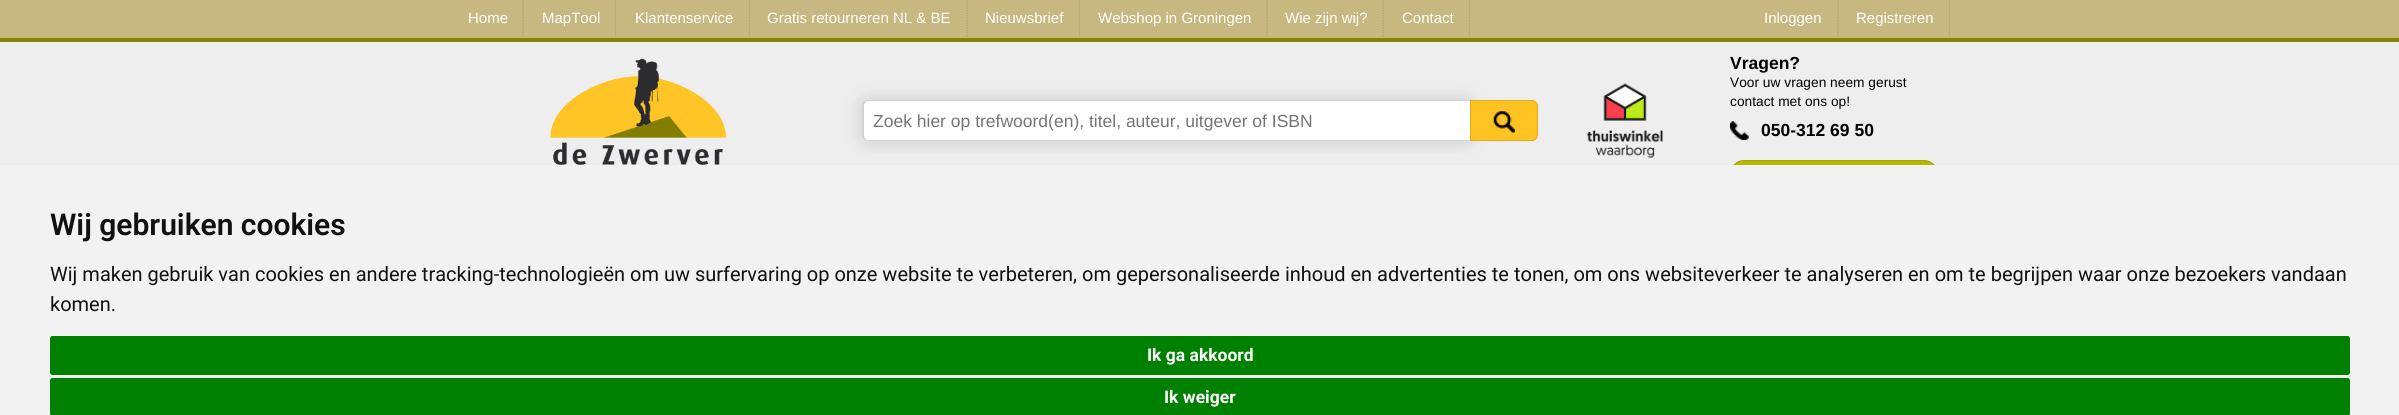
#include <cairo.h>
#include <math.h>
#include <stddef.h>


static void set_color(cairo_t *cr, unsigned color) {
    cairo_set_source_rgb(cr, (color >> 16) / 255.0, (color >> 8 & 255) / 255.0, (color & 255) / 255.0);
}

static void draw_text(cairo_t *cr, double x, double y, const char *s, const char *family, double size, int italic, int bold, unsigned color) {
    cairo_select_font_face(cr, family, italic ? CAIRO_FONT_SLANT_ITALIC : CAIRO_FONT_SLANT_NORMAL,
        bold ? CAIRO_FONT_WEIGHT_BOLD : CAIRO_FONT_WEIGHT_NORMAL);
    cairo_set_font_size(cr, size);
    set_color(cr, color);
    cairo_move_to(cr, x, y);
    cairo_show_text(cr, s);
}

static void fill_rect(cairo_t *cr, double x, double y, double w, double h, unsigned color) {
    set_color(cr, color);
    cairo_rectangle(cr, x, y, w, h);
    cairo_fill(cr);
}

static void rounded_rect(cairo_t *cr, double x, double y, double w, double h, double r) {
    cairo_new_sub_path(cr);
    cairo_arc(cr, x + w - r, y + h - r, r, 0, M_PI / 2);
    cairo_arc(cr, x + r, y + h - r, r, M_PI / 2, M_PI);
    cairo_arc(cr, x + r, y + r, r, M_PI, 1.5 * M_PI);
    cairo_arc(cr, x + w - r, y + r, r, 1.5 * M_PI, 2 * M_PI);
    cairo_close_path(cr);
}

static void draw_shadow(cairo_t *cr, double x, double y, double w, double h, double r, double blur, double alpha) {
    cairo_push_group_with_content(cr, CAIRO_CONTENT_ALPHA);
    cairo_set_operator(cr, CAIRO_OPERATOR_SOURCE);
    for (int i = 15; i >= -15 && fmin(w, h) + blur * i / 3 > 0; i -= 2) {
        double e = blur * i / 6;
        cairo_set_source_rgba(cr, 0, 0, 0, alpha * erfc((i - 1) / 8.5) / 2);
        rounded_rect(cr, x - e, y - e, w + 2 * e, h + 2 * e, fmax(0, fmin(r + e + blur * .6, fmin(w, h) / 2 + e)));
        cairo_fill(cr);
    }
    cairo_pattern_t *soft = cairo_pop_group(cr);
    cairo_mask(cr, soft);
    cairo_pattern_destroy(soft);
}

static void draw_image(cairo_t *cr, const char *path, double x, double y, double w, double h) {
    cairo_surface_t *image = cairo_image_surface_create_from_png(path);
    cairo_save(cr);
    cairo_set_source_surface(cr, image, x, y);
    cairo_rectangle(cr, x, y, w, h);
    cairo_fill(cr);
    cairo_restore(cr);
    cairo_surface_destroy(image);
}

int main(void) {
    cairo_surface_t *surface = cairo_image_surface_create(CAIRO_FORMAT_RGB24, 2399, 415);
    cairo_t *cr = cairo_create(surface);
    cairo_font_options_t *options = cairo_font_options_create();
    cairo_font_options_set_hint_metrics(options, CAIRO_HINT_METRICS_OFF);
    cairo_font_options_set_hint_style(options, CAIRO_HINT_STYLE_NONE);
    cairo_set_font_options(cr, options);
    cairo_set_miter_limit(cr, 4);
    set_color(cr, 0xEEEEEE);
    cairo_paint(cr);
    fill_rect(cr, 0, 0, 2399, 38, 0xC6B880);
    fill_rect(cr, 0, 38, 2399, 4, 0x848400);
    cairo_new_path(cr);
    cairo_move_to(cr, 523, 0);
    cairo_line_to(cr, 523, 37.5);
    set_color(cr, 0xB39E5A);
    cairo_set_line_width(cr, 1.2);
    cairo_set_dash(cr, (double[]){1.25, 1.25}, 2, 0);
    cairo_stroke(cr);
    draw_text(cr, 468, 23, "Home", "Liberation Sans", 15, 0, 0, 0xFFFFFF);
    cairo_new_path(cr);
    cairo_move_to(cr, 615.5, 0);
    cairo_line_to(cr, 615.5, 37.5);
    set_color(cr, 0xB39E5A);
    cairo_stroke(cr);
    draw_text(cr, 542, 23, "MapTool", "Liberation Sans", 15, 0, 0, 0xFFFFFF);
    cairo_new_path(cr);
    cairo_move_to(cr, 749.5, 0);
    cairo_line_to(cr, 749.5, 37.5);
    set_color(cr, 0xB39E5A);
    cairo_stroke(cr);
    draw_text(cr, 635, 23, "Klantenservice", "Liberation Sans", 15, 0, 0, 0xFFFFFF);
    cairo_new_path(cr);
    cairo_move_to(cr, 967, 0);
    cairo_line_to(cr, 967, 37.5);
    set_color(cr, 0xB39E5A);
    cairo_stroke(cr);
    draw_text(cr, 767, 23, "Gratis retourneren NL & BE", "Liberation Sans", 15, 0, 0, 0xFFFFFF);
    cairo_new_path(cr);
    cairo_move_to(cr, 1079.5, 0);
    cairo_line_to(cr, 1079.5, 37.5);
    set_color(cr, 0xB39E5A);
    cairo_stroke(cr);
    draw_text(cr, 985, 23, "Nieuwsbrief", "Liberation Sans", 15, 0, 0, 0xFFFFFF);
    cairo_new_path(cr);
    cairo_move_to(cr, 1267, 0);
    cairo_line_to(cr, 1267, 37.5);
    set_color(cr, 0xB39E5A);
    cairo_stroke(cr);
    draw_text(cr, 1098, 23, "Webshop in Groningen", "Liberation Sans", 15, 0, 0, 0xFFFFFF);
    cairo_new_path(cr);
    cairo_move_to(cr, 1383, 0);
    cairo_line_to(cr, 1383, 37.5);
    set_color(cr, 0xB39E5A);
    cairo_stroke(cr);
    draw_text(cr, 1285, 23, "Wie zijn wij?", "Liberation Sans", 15, 0, 0, 0xFFFFFF);
    cairo_new_path(cr);
    cairo_move_to(cr, 1469.5, 0);
    cairo_line_to(cr, 1469.5, 37.5);
    set_color(cr, 0xB39E5A);
    cairo_stroke(cr);
    draw_text(cr, 1402, 23, "Contact", "Liberation Sans", 15, 0, 0, 0xFFFFFF);
    cairo_new_path(cr);
    cairo_move_to(cr, 1838, 0);
    cairo_line_to(cr, 1838, 37.5);
    set_color(cr, 0xB39E5A);
    cairo_stroke(cr);
    draw_text(cr, 1764, 23, "Inloggen", "Liberation Sans", 15, 0, 0, 0xFFFFFF);
    cairo_save(cr);
    cairo_rectangle(cr, 1746, 0, 204, 38);
    cairo_clip(cr);
    cairo_new_path(cr);
    cairo_move_to(cr, 1949.5, 0);
    cairo_line_to(cr, 1949.5, 37.5);
    set_color(cr, 0xB39E5A);
    cairo_stroke(cr);
    cairo_restore(cr);
    draw_text(cr, 1856, 23, "Registreren", "Liberation Sans", 15, 0, 0, 0xFFFFFF);
    draw_image(cr, "assets/img1.png", 550, 58, 177, 107);
    cairo_new_path(cr);
    cairo_move_to(cr, 869, 100);
    cairo_line_to(cr, 1470, 100);
    cairo_line_to(cr, 1470, 141);
    cairo_line_to(cr, 869, 141);
    cairo_curve_to(cr, 865.5, 141, 863, 138.5, 863, 135);
    cairo_line_to(cr, 863, 106);
    cairo_curve_to(cr, 863, 102.5, 865.5, 100, 869, 100);
    cairo_close_path(cr);
    cairo_fill(cr);
    cairo_save(cr);
    cairo_set_fill_rule(cr, CAIRO_FILL_RULE_EVEN_ODD);
    cairo_new_path(cr);
    cairo_move_to(cr, 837, 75);
    cairo_line_to(cr, 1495, 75);
    cairo_line_to(cr, 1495, 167);
    cairo_line_to(cr, 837, 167);
    cairo_close_path(cr);
    cairo_move_to(cr, 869, 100);
    cairo_line_to(cr, 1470, 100);
    cairo_line_to(cr, 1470, 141);
    cairo_line_to(cr, 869, 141);
    cairo_curve_to(cr, 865.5, 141, 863, 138.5, 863, 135);
    cairo_line_to(cr, 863, 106);
    cairo_curve_to(cr, 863, 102.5, 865.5, 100, 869, 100);
    cairo_close_path(cr);
    cairo_clip(cr);
    set_color(cr, 0xDCDCDC);
    draw_shadow(cr, 856, 94, 620, 54, 13, 6, 1);
    cairo_restore(cr);
    set_color(cr, 0xD2D2D2);
    cairo_set_fill_rule(cr, CAIRO_FILL_RULE_EVEN_ODD);
    cairo_new_path(cr);
    cairo_move_to(cr, 869, 100);
    cairo_line_to(cr, 1470, 100);
    cairo_line_to(cr, 1470, 141);
    cairo_line_to(cr, 869, 141);
    cairo_curve_to(cr, 865, 141, 862, 138, 862, 135);
    cairo_line_to(cr, 862, 106);
    cairo_curve_to(cr, 862, 103, 865, 100, 869, 100);
    cairo_close_path(cr);
    cairo_move_to(cr, 869, 101);
    cairo_line_to(cr, 1470, 101);
    cairo_line_to(cr, 1470, 140);
    cairo_line_to(cr, 869, 140);
    cairo_curve_to(cr, 866, 140, 864, 138, 864, 135);
    cairo_line_to(cr, 864, 106);
    cairo_curve_to(cr, 864, 103, 866, 101, 869, 101);
    cairo_close_path(cr);
    cairo_fill(cr);
    draw_text(cr, 873, 127, "Zoek hier op trefwoord(en), titel, auteur, uitgever of ISBN", "Liberation Sans", 17.5, 0, 0, 0x757575);
    set_color(cr, 0xFFC422);
    cairo_new_path(cr);
    cairo_move_to(cr, 1470.5, 100.5);
    cairo_line_to(cr, 1532, 100.5);
    cairo_curve_to(cr, 1535, 100.5, 1537.5, 103, 1537.5, 106);
    cairo_line_to(cr, 1537.5, 135);
    cairo_curve_to(cr, 1537.5, 138, 1535, 140.5, 1532, 140.5);
    cairo_line_to(cr, 1470.5, 140.5);
    cairo_close_path(cr);
    cairo_fill_preserve(cr);
    set_color(cr, 0xE6A91B);
    cairo_set_line_width(cr, 1);
    cairo_set_dash(cr, NULL, 0, 0);
    cairo_stroke(cr);
    draw_image(cr, "assets/img2.png", 1493, 111, 22, 22);
    draw_image(cr, "assets/img3.png", 1587, 83, 76, 75);
    draw_text(cr, 1730, 69, "Vragen?", "Liberation Sans", 17.5, 0, 1, 0x000000);
    draw_text(cr, 1730, 87, "Voor uw vragen neem gerust", "Liberation Sans", 13.75, 0, 0, 0x000000);
    draw_text(cr, 1730, 106, "contact met ons op!", "Liberation Sans", 13.75, 0, 0, 0x000000);
    draw_image(cr, "assets/img4.png", 1730, 121, 19, 19);
    draw_text(cr, 1761, 136, "050-312 69 50", "Liberation Sans", 17.5, 0, 1, 0x000000);
    set_color(cr, 0xB7B701);
    rounded_rect(cr, 1730.5, 160.5, 207, 27, 13.5);
    cairo_fill_preserve(cr);
    set_color(cr, 0xA7A700);
    cairo_stroke(cr);
    fill_rect(cr, 0, 165, 2399, 250, 0xF2F2F2);
    draw_text(cr, 50, 235, "Wij gebruiken cookies", "Roboto SemiBold", 30, 0, 0, 0x111111);
    draw_text(cr, 50, 281, "Wij maken gebruik van cookies en andere tracking-technologieën om uw surfervaring op onze website te verbeteren, om gepersonaliseerde inhoud en advertenties te tonen, om ons websiteverkeer te analyseren en om te begrijpen waar onze bezoekers vandaan", "Roboto", 20, 0, 0, 0x111111);
    draw_text(cr, 50, 311, "komen.", "Roboto", 20, 0, 0, 0x111111);
    set_color(cr, 0x008000);
    rounded_rect(cr, 50, 336, 2300, 39, 2.5);
    cairo_fill(cr);
    draw_text(cr, 1147, 361, "Ik ga akkoord", "Roboto", 17.5, 0, 1, 0xFFFFFF);
    set_color(cr, 0x008000);
    rounded_rect(cr, 50, 378, 2300, 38, 2.5);
    cairo_fill(cr);
    draw_text(cr, 1164, 403, "Ik weiger", "Roboto", 17.5, 0, 1, 0xFFFFFF);
    cairo_surface_write_to_png(surface, "output.png");
    cairo_font_options_destroy(options);
    cairo_destroy(cr);
    cairo_surface_destroy(surface);
    return 0;
}
